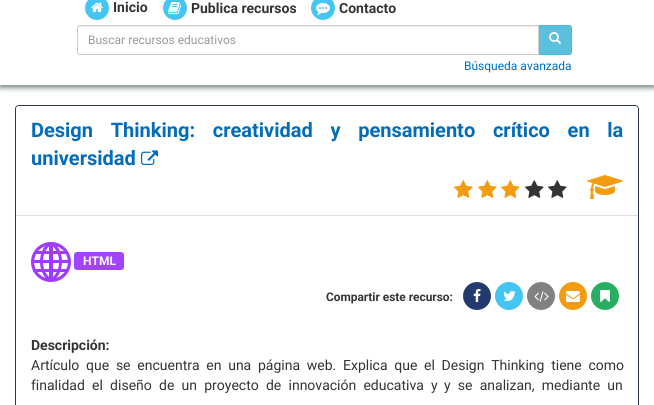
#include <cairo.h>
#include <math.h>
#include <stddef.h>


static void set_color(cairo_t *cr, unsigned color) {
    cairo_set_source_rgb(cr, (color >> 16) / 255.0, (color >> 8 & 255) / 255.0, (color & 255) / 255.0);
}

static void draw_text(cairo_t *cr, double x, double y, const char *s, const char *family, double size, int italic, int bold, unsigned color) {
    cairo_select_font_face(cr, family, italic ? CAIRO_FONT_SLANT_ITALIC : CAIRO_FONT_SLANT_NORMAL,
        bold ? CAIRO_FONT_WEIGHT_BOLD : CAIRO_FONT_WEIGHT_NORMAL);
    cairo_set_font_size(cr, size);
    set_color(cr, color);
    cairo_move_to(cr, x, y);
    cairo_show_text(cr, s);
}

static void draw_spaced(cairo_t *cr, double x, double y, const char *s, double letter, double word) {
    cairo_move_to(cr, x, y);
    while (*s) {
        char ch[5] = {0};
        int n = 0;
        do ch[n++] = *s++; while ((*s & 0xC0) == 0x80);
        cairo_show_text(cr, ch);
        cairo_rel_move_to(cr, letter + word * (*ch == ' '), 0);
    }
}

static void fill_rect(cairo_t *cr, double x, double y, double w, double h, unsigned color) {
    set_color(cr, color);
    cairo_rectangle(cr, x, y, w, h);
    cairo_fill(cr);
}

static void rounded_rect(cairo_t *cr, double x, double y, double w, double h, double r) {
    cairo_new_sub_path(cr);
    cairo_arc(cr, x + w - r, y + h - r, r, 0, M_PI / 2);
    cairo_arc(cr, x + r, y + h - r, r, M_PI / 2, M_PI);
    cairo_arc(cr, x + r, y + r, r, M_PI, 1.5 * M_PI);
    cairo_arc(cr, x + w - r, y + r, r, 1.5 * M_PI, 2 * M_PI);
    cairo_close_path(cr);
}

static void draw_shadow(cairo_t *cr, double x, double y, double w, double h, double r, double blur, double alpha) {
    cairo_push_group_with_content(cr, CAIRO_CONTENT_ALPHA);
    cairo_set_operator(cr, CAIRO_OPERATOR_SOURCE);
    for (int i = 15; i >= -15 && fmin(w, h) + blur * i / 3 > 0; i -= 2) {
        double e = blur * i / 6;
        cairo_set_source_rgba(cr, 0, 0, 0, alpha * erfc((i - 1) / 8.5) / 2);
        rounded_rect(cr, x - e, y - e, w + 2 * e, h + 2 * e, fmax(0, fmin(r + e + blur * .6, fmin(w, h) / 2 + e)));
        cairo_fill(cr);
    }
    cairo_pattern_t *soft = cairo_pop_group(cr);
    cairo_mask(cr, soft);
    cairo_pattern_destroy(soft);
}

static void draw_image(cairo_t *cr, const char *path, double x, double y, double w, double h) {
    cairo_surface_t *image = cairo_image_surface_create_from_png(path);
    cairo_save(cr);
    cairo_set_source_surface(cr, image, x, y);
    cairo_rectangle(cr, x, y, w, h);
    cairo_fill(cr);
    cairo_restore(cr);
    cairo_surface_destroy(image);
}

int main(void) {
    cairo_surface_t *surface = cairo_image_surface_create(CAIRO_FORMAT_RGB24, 654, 405);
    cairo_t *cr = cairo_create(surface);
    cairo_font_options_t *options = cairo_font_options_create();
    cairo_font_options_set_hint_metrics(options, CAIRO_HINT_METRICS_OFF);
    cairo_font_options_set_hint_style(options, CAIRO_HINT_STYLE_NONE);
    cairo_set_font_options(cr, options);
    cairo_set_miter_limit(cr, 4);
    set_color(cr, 0xFFFFFF);
    cairo_paint(cr);
    cairo_save(cr);
    cairo_rectangle(cr, 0, 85, 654, 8);
    cairo_clip(cr);
    set_color(cr, 0x7F8C8D);
    draw_shadow(cr, 0, -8, 654, 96, 0, 2.5, 1);
    cairo_restore(cr);
    set_color(cr, 0x45C5F4);
    cairo_arc(cr, 97, 8, 12, 0, 2 * M_PI);
    cairo_fill(cr);
    draw_image(cr, "assets/img1.png", 91, 2, 12, 10);
    draw_text(cr, 113, 12, "Inicio", "Roboto", 14, 0, 1, 0x333333);
    set_color(cr, 0x45C5F4);
    cairo_new_path(cr);
    cairo_arc(cr, 175, 8, 12, 0, 2 * M_PI);
    cairo_fill(cr);
    draw_image(cr, "assets/img2.png", 168, 2, 13, 12);
    draw_text(cr, 191, 13, "Publica recursos", "Roboto", 14, 0, 1, 0x333333);
    set_color(cr, 0x45C5F4);
    cairo_new_path(cr);
    cairo_arc(cr, 323, 8, 12, 0, 2 * M_PI);
    cairo_fill(cr);
    draw_image(cr, "assets/img3.png", 316, 3, 14, 12);
    draw_text(cr, 339, 13, "Contacto", "Roboto", 14, 0, 1, 0x333333);
    set_color(cr, 0x5BC0DE);
    cairo_new_path(cr);
    cairo_move_to(cr, 538.5, 25.5);
    cairo_line_to(cr, 569, 25.5);
    cairo_curve_to(cr, 570.5, 25.5, 571.5, 26.5, 571.5, 28);
    cairo_line_to(cr, 571.5, 52);
    cairo_curve_to(cr, 571.5, 53.5, 570.5, 54.5, 569, 54.5);
    cairo_line_to(cr, 538.5, 54.5);
    cairo_close_path(cr);
    cairo_fill_preserve(cr);
    set_color(cr, 0x46B8DA);
    cairo_set_line_width(cr, 1);
    cairo_stroke(cr);
    set_color(cr, 0xFFFFFF);
    cairo_new_path(cr);
    cairo_move_to(cr, 80, 25);
    cairo_line_to(cr, 539, 25);
    cairo_line_to(cr, 539, 55);
    cairo_line_to(cr, 80, 55);
    cairo_curve_to(cr, 78.5, 55, 77, 53.5, 77, 52);
    cairo_line_to(cr, 77, 28);
    cairo_curve_to(cr, 77, 26.5, 78.5, 25, 80, 25);
    cairo_close_path(cr);
    cairo_fill(cr);
    set_color(cr, 0xECECEC);
    cairo_new_path(cr);
    cairo_move_to(cr, 80, 27);
    cairo_line_to(cr, 538, 27);
    cairo_line_to(cr, 538, 26);
    cairo_line_to(cr, 80, 26);
    cairo_curve_to(cr, 78, 26, 78, 28, 78, 29);
    cairo_curve_to(cr, 78, 28, 79, 27, 80, 27);
    cairo_close_path(cr);
    cairo_fill(cr);
    cairo_new_path(cr);
    cairo_move_to(cr, 80, 25.5);
    cairo_line_to(cr, 538.5, 25.5);
    cairo_line_to(cr, 538.5, 54.5);
    cairo_line_to(cr, 80, 54.5);
    cairo_curve_to(cr, 78.5, 54.5, 77.5, 53.5, 77.5, 52);
    cairo_line_to(cr, 77.5, 28);
    cairo_curve_to(cr, 77.5, 26.5, 78.5, 25.5, 80, 25.5);
    cairo_close_path(cr);
    set_color(cr, 0xCCCCCC);
    cairo_stroke(cr);
    draw_text(cr, 88, 44, "Buscar recursos educativos", "Roboto", 12, 0, 0, 0x999999);
    draw_image(cr, "assets/img4.png", 549, 32, 12, 12);
    draw_text(cr, 464, 70, "Búsqueda avanzada", "Roboto", 12, 0, 0, 0x006CBA);
    rounded_rect(cr, 15.5, 105.5, 623, 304, 3.5);
    set_color(cr, 0x2E3948);
    cairo_stroke(cr);
    set_color(cr, 0xFFFFFF);
    cairo_new_path(cr);
    cairo_move_to(cr, 19, 106);
    cairo_line_to(cr, 635, 106);
    cairo_curve_to(cr, 636.5, 106, 638, 107.5, 638, 109);
    cairo_line_to(cr, 638, 216);
    cairo_line_to(cr, 16, 216);
    cairo_line_to(cr, 16, 109);
    cairo_curve_to(cr, 16, 107.5, 17.5, 106, 19, 106);
    cairo_close_path(cr);
    cairo_fill(cr);
    fill_rect(cr, 16, 215, 622, 1, 0xDDDDDD);
    cairo_select_font_face(cr, "Roboto", CAIRO_FONT_SLANT_NORMAL, CAIRO_FONT_WEIGHT_BOLD);
    cairo_set_font_size(cr, 20);
    set_color(cr, 0x006CBA);
    draw_spaced(cr, 31, 137, "Design Thinking: creatividad y pensamiento crítico en la", 0, 12.75);
    draw_text(cr, 31, 165, "universidad", "Roboto", 20, 0, 1, 0x006CBA);
    draw_image(cr, "assets/img5.png", 141, 150, 17, 15);
    draw_image(cr, "assets/img6.png", 454, 180, 19, 18);
    draw_image(cr, "assets/img6.png", 478, 180, 19, 18);
    draw_image(cr, "assets/img6.png", 501, 180, 19, 18);
    draw_image(cr, "assets/img7.png", 525, 180, 19, 18);
    draw_image(cr, "assets/img7.png", 548, 180, 19, 18);
    draw_image(cr, "assets/img8.png", 587, 175, 36, 24);
    draw_image(cr, "assets/img9.png", 31, 242, 40, 40);
    set_color(cr, 0xA342FF);
    rounded_rect(cr, 74, 252, 50, 18, 3);
    cairo_fill(cr);
    draw_text(cr, 83, 265, "HTML", "Roboto", 12, 0, 1, 0xFFFFFF);
    draw_text(cr, 326, 301, "Compartir este recurso:", "Roboto", 11.9, 0, 1, 0x333333);
    set_color(cr, 0x223A6E);
    cairo_new_path(cr);
    cairo_arc(cr, 477, 296, 14, 0, 2 * M_PI);
    cairo_fill(cr);
    draw_image(cr, "assets/img10.png", 473, 289, 8, 13);
    set_color(cr, 0x45C5F4);
    cairo_arc(cr, 509, 296, 14, 0, 2 * M_PI);
    cairo_fill(cr);
    draw_image(cr, "assets/img11.png", 503, 291, 13, 10);
    set_color(cr, 0x818181);
    cairo_arc(cr, 541, 296, 14, 0, 2 * M_PI);
    cairo_fill(cr);
    draw_image(cr, "assets/img12.png", 534, 291, 15, 11);
    set_color(cr, 0xF39C12);
    cairo_arc(cr, 573, 296, 14, 0, 2 * M_PI);
    cairo_fill(cr);
    draw_image(cr, "assets/img13.png", 566, 291, 14, 11);
    set_color(cr, 0x27AE60);
    cairo_arc(cr, 605, 296, 14, 0, 2 * M_PI);
    cairo_fill(cr);
    draw_image(cr, "assets/img14.png", 600, 290, 10, 12);
    draw_text(cr, 31, 350, "Descripción:", "Roboto", 14, 0, 1, 0x333333);
    cairo_select_font_face(cr, "Roboto", CAIRO_FONT_SLANT_NORMAL, CAIRO_FONT_WEIGHT_NORMAL);
    draw_spaced(cr, 31, 370, "Artículo que se encuentra en una página web. Explica que el Design Thinking tiene como", 0, 3.25);
    draw_spaced(cr, 31, 390, "finalidad el diseño de un proyecto de innovación educativa y", 0, 3.75);
    draw_spaced(cr, 444, 390, "y se analizan, mediante un", 0, 3.75);
    cairo_surface_write_to_png(surface, "output.png");
    cairo_font_options_destroy(options);
    cairo_destroy(cr);
    cairo_surface_destroy(surface);
    return 0;
}
